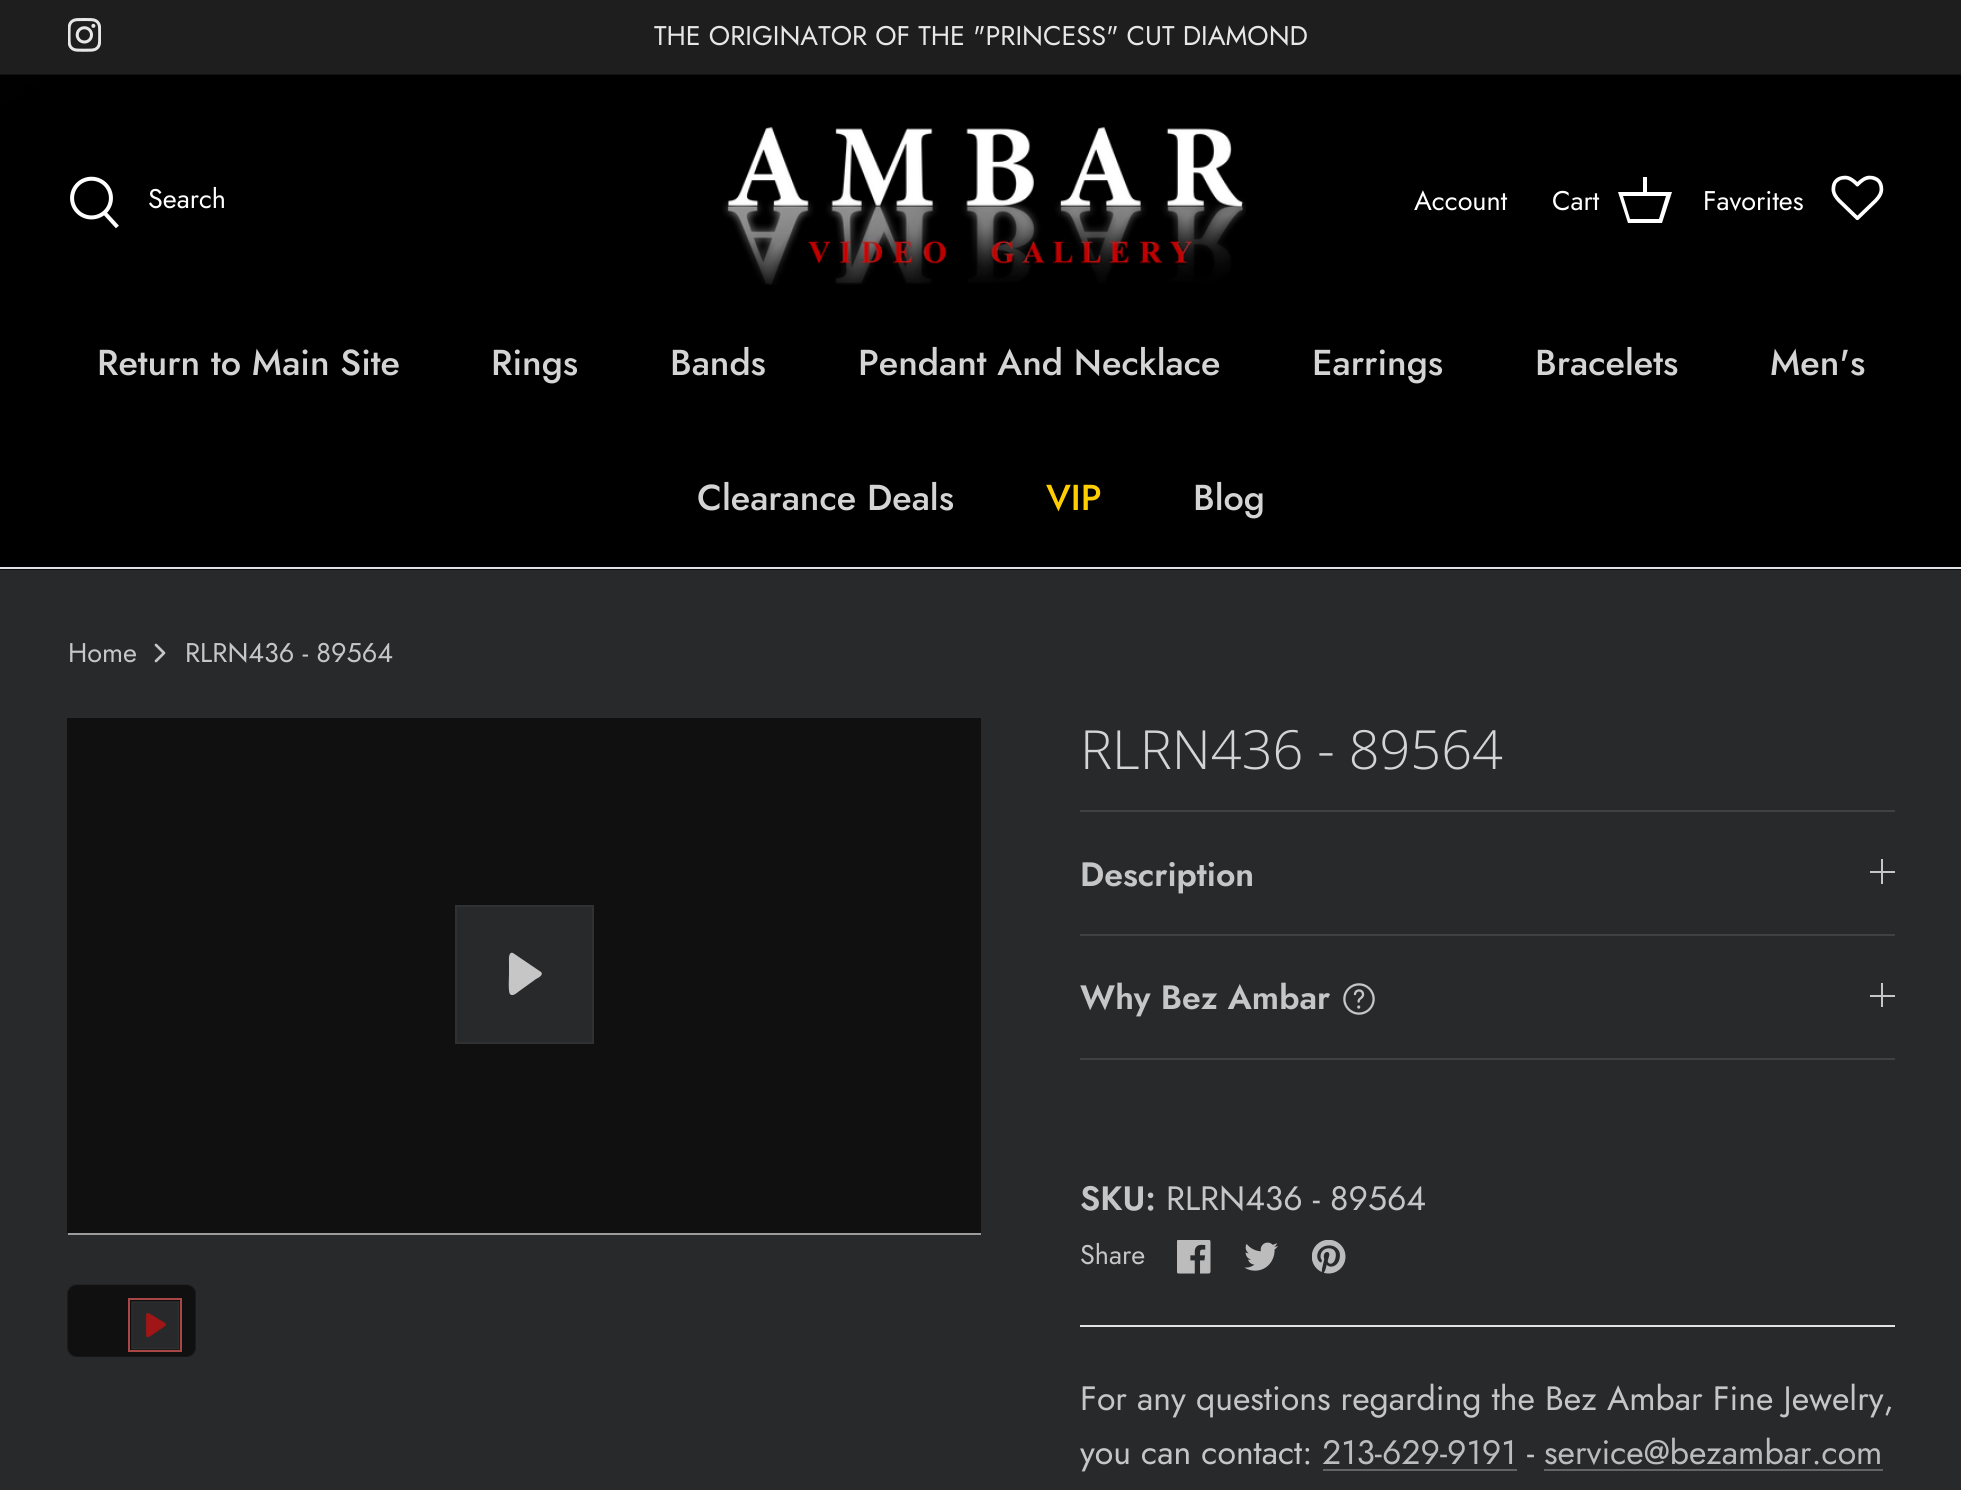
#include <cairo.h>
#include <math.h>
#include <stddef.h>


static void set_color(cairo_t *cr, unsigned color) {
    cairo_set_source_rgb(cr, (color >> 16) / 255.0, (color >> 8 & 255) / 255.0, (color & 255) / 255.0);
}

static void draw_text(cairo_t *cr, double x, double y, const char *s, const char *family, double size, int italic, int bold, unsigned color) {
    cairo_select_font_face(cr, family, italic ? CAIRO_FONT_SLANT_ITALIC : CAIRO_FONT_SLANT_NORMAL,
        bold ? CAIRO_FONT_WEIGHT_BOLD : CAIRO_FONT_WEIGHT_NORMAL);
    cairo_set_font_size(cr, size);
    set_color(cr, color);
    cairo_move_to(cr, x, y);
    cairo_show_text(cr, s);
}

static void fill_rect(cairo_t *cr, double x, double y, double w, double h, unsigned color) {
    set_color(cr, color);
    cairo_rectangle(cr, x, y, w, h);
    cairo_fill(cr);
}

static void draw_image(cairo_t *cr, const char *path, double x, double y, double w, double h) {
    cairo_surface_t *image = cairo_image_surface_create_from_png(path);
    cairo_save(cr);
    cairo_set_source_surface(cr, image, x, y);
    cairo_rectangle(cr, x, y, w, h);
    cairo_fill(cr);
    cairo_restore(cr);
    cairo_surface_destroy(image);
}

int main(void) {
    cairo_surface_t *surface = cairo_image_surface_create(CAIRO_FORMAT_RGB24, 1961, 1490);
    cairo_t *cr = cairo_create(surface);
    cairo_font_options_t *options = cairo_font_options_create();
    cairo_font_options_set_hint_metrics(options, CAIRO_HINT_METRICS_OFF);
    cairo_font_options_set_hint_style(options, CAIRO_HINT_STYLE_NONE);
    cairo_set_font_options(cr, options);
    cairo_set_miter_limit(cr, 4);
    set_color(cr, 0x28292B);
    cairo_paint(cr);
    fill_rect(cr, 0, 0, 1961, 74, 0x1E1E1E);
    draw_image(cr, "assets/img1.png", 68, 18, 33, 34);
    draw_text(cr, 654, 45, "THE ORIGINATOR OF THE \"PRINCESS\" CUT DIAMOND", "Jost", 27, 0, 0, 0xE7E7E7);
    draw_image(cr, "assets/img2.png", 0, 74, 1961, 496);
    draw_image(cr, "assets/img3.png", 70, 176, 49, 53);
    draw_text(cr, 148, 208, "Search", "Jost", 27, 0, 0, 0xFFFFFF);
    draw_image(cr, "assets/img4.png", 722, 127, 524, 158);
    draw_text(cr, 1414, 210, "Account", "Jost", 27, 0, 0, 0xFFFFFF);
    draw_text(cr, 1552, 210, "Cart", "Jost", 27, 0, 0, 0xFFFFFF);
    cairo_new_path(cr);
    cairo_move_to(cr, 1643, 192);
    cairo_line_to(cr, 1643, 177);
    cairo_line_to(cr, 1647, 177);
    cairo_line_to(cr, 1647, 192);
    cairo_line_to(cr, 1672, 192);
    cairo_line_to(cr, 1662, 223);
    cairo_line_to(cr, 1628, 223);
    cairo_line_to(cr, 1618, 192);
    cairo_close_path(cr);
    cairo_move_to(cr, 1623, 196);
    cairo_line_to(cr, 1630, 219);
    cairo_line_to(cr, 1659, 219);
    cairo_line_to(cr, 1666, 196);
    cairo_close_path(cr);
    cairo_fill(cr);
    draw_text(cr, 1703, 210, "Favorites", "Jost", 27, 0, 0, 0xFFFFFF);
    draw_image(cr, "assets/img5.png", 1831, 175, 53, 46);
    fill_rect(cr, 0, 567, 1961, 2, 0xDFE3E8);
    draw_text(cr, 97, 375, "Return to Main Site", "Jost Medium", 36, 0, 0, 0xD4D4D4);
    draw_text(cr, 491, 375, "Rings", "Jost Medium", 36, 0, 0, 0xD4D4D4);
    draw_text(cr, 670, 375, "Bands", "Jost Medium", 36, 0, 0, 0xD4D4D4);
    draw_text(cr, 858, 375, "Pendant And Necklace", "Jost Medium", 36, 0, 0, 0xD4D4D4);
    draw_text(cr, 1312, 375, "Earrings", "Jost Medium", 36, 0, 0, 0xD4D4D4);
    draw_text(cr, 1535, 375, "Bracelets", "Jost Medium", 36, 0, 0, 0xD4D4D4);
    draw_text(cr, 1770, 375, "Men's", "Jost Medium", 36, 0, 0, 0xD4D4D4);
    draw_text(cr, 697, 510, "Clearance Deals", "Jost Medium", 36, 0, 0, 0xD4D4D4);
    draw_text(cr, 1046, 510, "VIP", "Jost Medium", 36, 0, 0, 0xFFCE00);
    draw_text(cr, 1193, 510, "Blog", "Jost Medium", 36, 0, 0, 0xD4D4D4);
    draw_text(cr, 68, 662, "Home", "Jost", 27, 0, 0, 0xC6C6C6);
    cairo_new_path(cr);
    cairo_move_to(cr, 156, 661);
    cairo_line_to(cr, 164, 653);
    cairo_line_to(cr, 156, 645);
    cairo_set_line_width(cr, 2.7);
    cairo_set_line_cap(cr, CAIRO_LINE_CAP_ROUND);
    cairo_set_line_join(cr, CAIRO_LINE_JOIN_ROUND);
    cairo_stroke(cr);
    draw_text(cr, 185, 662, "RLRN436 - 89564", "Jost", 27, 0, 0, 0xC6C6C6);
    fill_rect(cr, 68, 1233, 913, 2, 0x9C9C9C);
    fill_rect(cr, 67, 718, 914, 515, 0x101010);
    set_color(cr, 0x28292B);
    cairo_rectangle(cr, 456, 906, 137, 137);
    cairo_fill_preserve(cr);
    set_color(cr, 0x303133);
    cairo_set_line_width(cr, 2);
    cairo_set_line_cap(cr, CAIRO_LINE_CAP_BUTT);
    cairo_set_line_join(cr, CAIRO_LINE_JOIN_MITER);
    cairo_stroke(cr);
    set_color(cr, 0xC6C6C6);
    cairo_new_path(cr);
    cairo_move_to(cr, 541, 972);
    cairo_line_to(cr, 513, 953);
    cairo_curve_to(cr, 508, 951, 509, 961, 509, 962);
    cairo_line_to(cr, 509, 974);
    cairo_curve_to(cr, 509, 977, 508, 992, 510, 994);
    cairo_curve_to(cr, 512, 997, 517, 993, 518, 992);
    cairo_line_to(cr, 536, 979);
    cairo_curve_to(cr, 538, 978, 544, 975, 541, 972);
    cairo_close_path(cr);
    cairo_fill(cr);
    draw_image(cr, "assets/img6.png", 67, 1284, 129, 73);
    cairo_rectangle(cr, 129, 1299, 52, 52);
    set_color(cr, 0xA94747);
    cairo_stroke(cr);
    draw_image(cr, "assets/img7.png", 131, 1301, 49, 49);
    draw_text(cr, 1080, 769, "RLRN436 - 89564", "Open Sans Light", 54, 0, 0, 0xD4D4D4);
    fill_rect(cr, 1080, 810, 815, 2, 0x404142);
    fill_rect(cr, 1080, 934, 815, 2, 0x404142);
    draw_text(cr, 1080, 886, "Description", "Jost SemiBold", 33.75, 0, 0, 0xC6C6C6);
    fill_rect(cr, 1881, 859, 2, 25, 0xC6C6C6);
    fill_rect(cr, 1870, 871, 25, 2, 0xC6C6C6);
    fill_rect(cr, 1080, 1058, 815, 2, 0x404142);
    draw_text(cr, 1080, 1009, "Why Bez Ambar", "Jost SemiBold", 33.75, 0, 0, 0xC6C6C6);
    draw_image(cr, "assets/img8.png", 1343, 983, 32, 32);
    fill_rect(cr, 1881, 983, 2, 24, 0xC6C6C6);
    fill_rect(cr, 1870, 995, 25, 2, 0xC6C6C6);
    draw_text(cr, 1080, 1210, "SKU:", "Jost SemiBold", 33.75, 0, 0, 0xC6C6C6);
    draw_text(cr, 1166, 1210, "RLRN436 - 89564", "Jost", 33.75, 0, 0, 0xC6C6C6);
    draw_text(cr, 1080, 1264, "Share", "Jost", 27, 0, 0, 0xC6C6C6);
    draw_image(cr, "assets/img9.png", 1177, 1240, 34, 34);
    draw_image(cr, "assets/img10.png", 1244, 1242, 34, 29);
    draw_image(cr, "assets/img11.png", 1312, 1240, 34, 34);
    fill_rect(cr, 1080, 1325, 815, 2, 0xE2E2E2);
    draw_text(cr, 1080, 1410, "For any questions regarding the Bez Ambar Fine Jewelry,", "Jost", 33.75, 0, 0, 0xC6C6C6);
    draw_text(cr, 1080, 1464, "you can contact:", "Jost", 33.75, 0, 0, 0xC6C6C6);
    draw_text(cr, 1322, 1464, "213-629-9191", "Jost", 33.75, 0, 0, 0xBCBCBC);
    fill_rect(cr, 1323, 1469, 194, 2, 0x636465);
    draw_text(cr, 1527, 1464, "-", "Jost", 33.75, 0, 0, 0xC6C6C6);
    draw_text(cr, 1544, 1464, "service@bezambar.com", "Jost", 33.75, 0, 0, 0xBCBCBC);
    fill_rect(cr, 1544, 1469, 339, 2, 0x636465);
    cairo_surface_write_to_png(surface, "output.png");
    cairo_font_options_destroy(options);
    cairo_destroy(cr);
    cairo_surface_destroy(surface);
    return 0;
}
